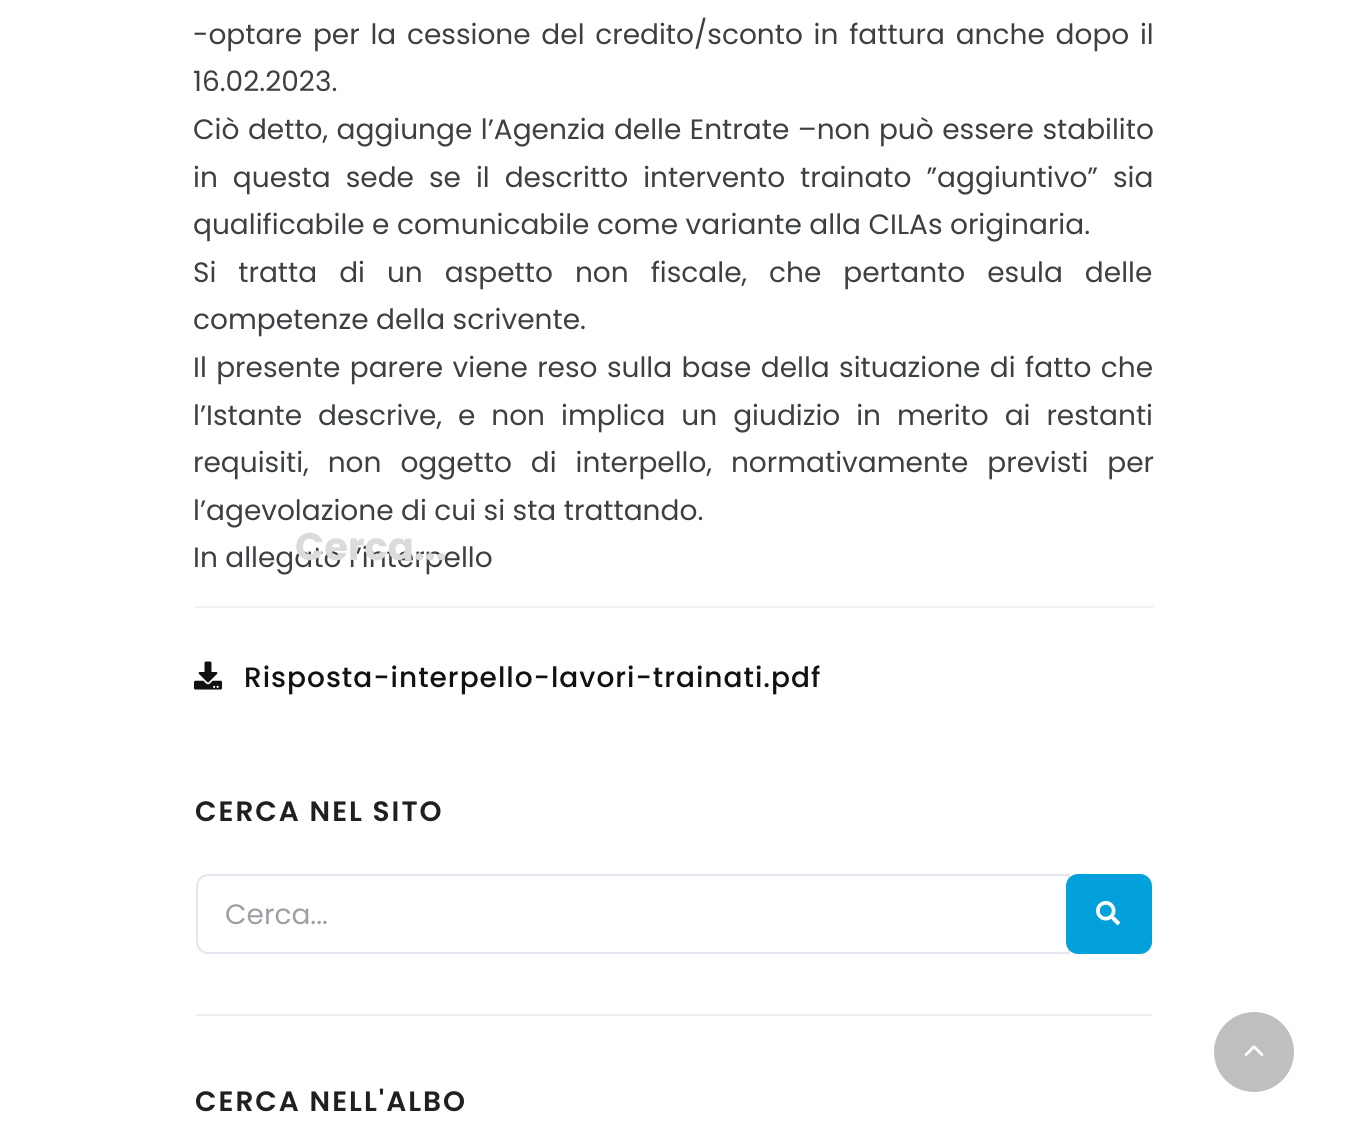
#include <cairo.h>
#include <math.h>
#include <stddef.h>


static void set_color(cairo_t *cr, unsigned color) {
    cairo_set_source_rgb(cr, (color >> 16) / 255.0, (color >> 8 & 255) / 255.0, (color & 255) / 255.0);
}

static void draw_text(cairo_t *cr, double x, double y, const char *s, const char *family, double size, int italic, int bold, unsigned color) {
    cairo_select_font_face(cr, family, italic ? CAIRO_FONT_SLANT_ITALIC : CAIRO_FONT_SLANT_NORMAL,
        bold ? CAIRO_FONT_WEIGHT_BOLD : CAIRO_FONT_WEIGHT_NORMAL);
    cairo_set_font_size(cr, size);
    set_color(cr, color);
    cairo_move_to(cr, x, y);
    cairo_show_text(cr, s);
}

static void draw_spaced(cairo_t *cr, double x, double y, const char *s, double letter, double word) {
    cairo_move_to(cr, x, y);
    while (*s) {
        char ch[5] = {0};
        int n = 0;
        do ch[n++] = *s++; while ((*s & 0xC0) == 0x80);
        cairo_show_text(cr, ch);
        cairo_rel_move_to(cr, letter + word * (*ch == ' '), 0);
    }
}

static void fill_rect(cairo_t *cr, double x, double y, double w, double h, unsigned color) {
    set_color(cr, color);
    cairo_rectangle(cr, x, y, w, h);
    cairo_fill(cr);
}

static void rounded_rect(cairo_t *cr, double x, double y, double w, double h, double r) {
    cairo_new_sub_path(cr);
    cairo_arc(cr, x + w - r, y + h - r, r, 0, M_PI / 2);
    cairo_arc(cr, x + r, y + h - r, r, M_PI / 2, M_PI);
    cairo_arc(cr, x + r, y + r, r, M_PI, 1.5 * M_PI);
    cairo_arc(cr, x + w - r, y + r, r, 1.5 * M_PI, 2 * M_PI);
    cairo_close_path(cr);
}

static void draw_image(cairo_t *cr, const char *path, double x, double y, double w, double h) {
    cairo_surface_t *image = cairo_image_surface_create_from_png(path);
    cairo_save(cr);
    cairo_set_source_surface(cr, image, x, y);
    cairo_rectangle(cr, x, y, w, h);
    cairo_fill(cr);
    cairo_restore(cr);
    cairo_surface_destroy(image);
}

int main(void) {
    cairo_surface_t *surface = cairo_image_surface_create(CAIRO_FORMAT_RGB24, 1345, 1143);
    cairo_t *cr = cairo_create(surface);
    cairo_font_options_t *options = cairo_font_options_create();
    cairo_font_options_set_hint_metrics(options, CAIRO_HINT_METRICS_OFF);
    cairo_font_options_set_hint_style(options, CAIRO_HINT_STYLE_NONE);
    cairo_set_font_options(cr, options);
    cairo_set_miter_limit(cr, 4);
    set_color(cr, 0xFFFFFF);
    cairo_paint(cr);
    fill_rect(cr, 194, 606, 960, 2, 0xF3F3F3);
    cairo_select_font_face(cr, "Poppins", CAIRO_FONT_SLANT_NORMAL, CAIRO_FONT_WEIGHT_NORMAL);
    cairo_set_font_size(cr, 28);
    set_color(cr, 0x3C4043);
    draw_spaced(cr, 193, 44, "-optare per la cessione del credito/sconto in fattura anche dopo il", 0, 3.25);
    draw_text(cr, 193, 91, "16.02.2023.", "Poppins", 28, 0, 0, 0x3C4043);
    draw_spaced(cr, 193, 139, "Ciò detto, aggiunge l’Agenzia delle Entrate –non può essere stabilito", 0, 1);
    draw_spaced(cr, 193, 187, "in questa sede se il descritto intervento trainato ”aggiuntivo” sia", 0, 7.5);
    draw_text(cr, 193, 234, "qualificabile e comunicabile come variante alla CILAs originaria.", "Poppins", 28, 0, 0, 0x3C4043);
    draw_spaced(cr, 193, 282, "Si tratta di un aspetto non fiscale, che pertanto esula delle", 0, 14.5);
    draw_text(cr, 193, 329, "competenze della scrivente.", "Poppins", 28, 0, 0, 0x3C4043);
    draw_spaced(cr, 193, 377, "Il presente parere viene reso sulla base della situazione di fatto che", 0, 1.9);
    draw_spaced(cr, 193, 425, "l’Istante descrive, e non implica un giudizio in merito ai restanti", 0, 8.5);
    draw_spaced(cr, 193, 472, "requisiti, non oggetto di interpello, normativamente previsti per", 0, 11.5);
    draw_text(cr, 193, 520, "l’agevolazione di cui si sta trattando.", "Poppins", 28, 0, 0, 0x3C4043);
    draw_text(cr, 193, 567, "In allegato l’interpello", "Poppins", 28, 0, 0, 0x3C4043);
    draw_image(cr, "assets/img1.png", 194, 661, 28, 29);
    cairo_select_font_face(cr, "Poppins Medium", CAIRO_FONT_SLANT_NORMAL, CAIRO_FONT_WEIGHT_NORMAL);
    set_color(cr, 0x111111);
    draw_spaced(cr, 244, 687, "Risposta-interpello-lavori-trainati.pdf", 1, 0);
    fill_rect(cr, 196, 1014, 956, 2, 0xEEEEEE);
    cairo_select_font_face(cr, "Poppins SemiBold", CAIRO_FONT_SLANT_NORMAL, CAIRO_FONT_WEIGHT_NORMAL);
    set_color(cr, 0x1E2022);
    draw_spaced(cr, 195, 821, "CERCA NEL SITO", 2, 0);
    cairo_new_path(cr);
    cairo_move_to(cr, 208, 875);
    cairo_line_to(cr, 1069, 875);
    cairo_line_to(cr, 1069, 953);
    cairo_line_to(cr, 208, 953);
    cairo_curve_to(cr, 202, 953, 197, 948, 197, 942);
    cairo_line_to(cr, 197, 886);
    cairo_curve_to(cr, 197, 880, 202, 875, 208, 875);
    cairo_close_path(cr);
    set_color(cr, 0xE4E6EF);
    cairo_stroke(cr);
    draw_text(cr, 225, 924, "Cerca...", "Poppins", 28, 0, 0, 0x9AA0A6);
    set_color(cr, 0x02A1DB);
    rounded_rect(cr, 1067, 875, 84, 78, 11);
    cairo_fill_preserve(cr);
    cairo_stroke(cr);
    draw_image(cr, "assets/img2.png", 1096, 901, 24, 24);
    cairo_select_font_face(cr, "Poppins SemiBold", CAIRO_FONT_SLANT_NORMAL, CAIRO_FONT_WEIGHT_NORMAL);
    set_color(cr, 0x1E2022);
    draw_spaced(cr, 195, 1111, "CERCA NELL'ALBO", 2, 0);
    draw_text(cr, 295, 560, "Cerca...", "Poppins", 38.5, 0, 1, 0xDADBDB);
    set_color(cr, 0xBFBFBF);
    cairo_new_path(cr);
    cairo_arc(cr, 1254, 1052, 40, 0, 2 * M_PI);
    cairo_fill(cr);
    draw_image(cr, "assets/img3.png", 1244, 1045, 20, 11);
    cairo_surface_write_to_png(surface, "output.png");
    cairo_font_options_destroy(options);
    cairo_destroy(cr);
    cairo_surface_destroy(surface);
    return 0;
}
